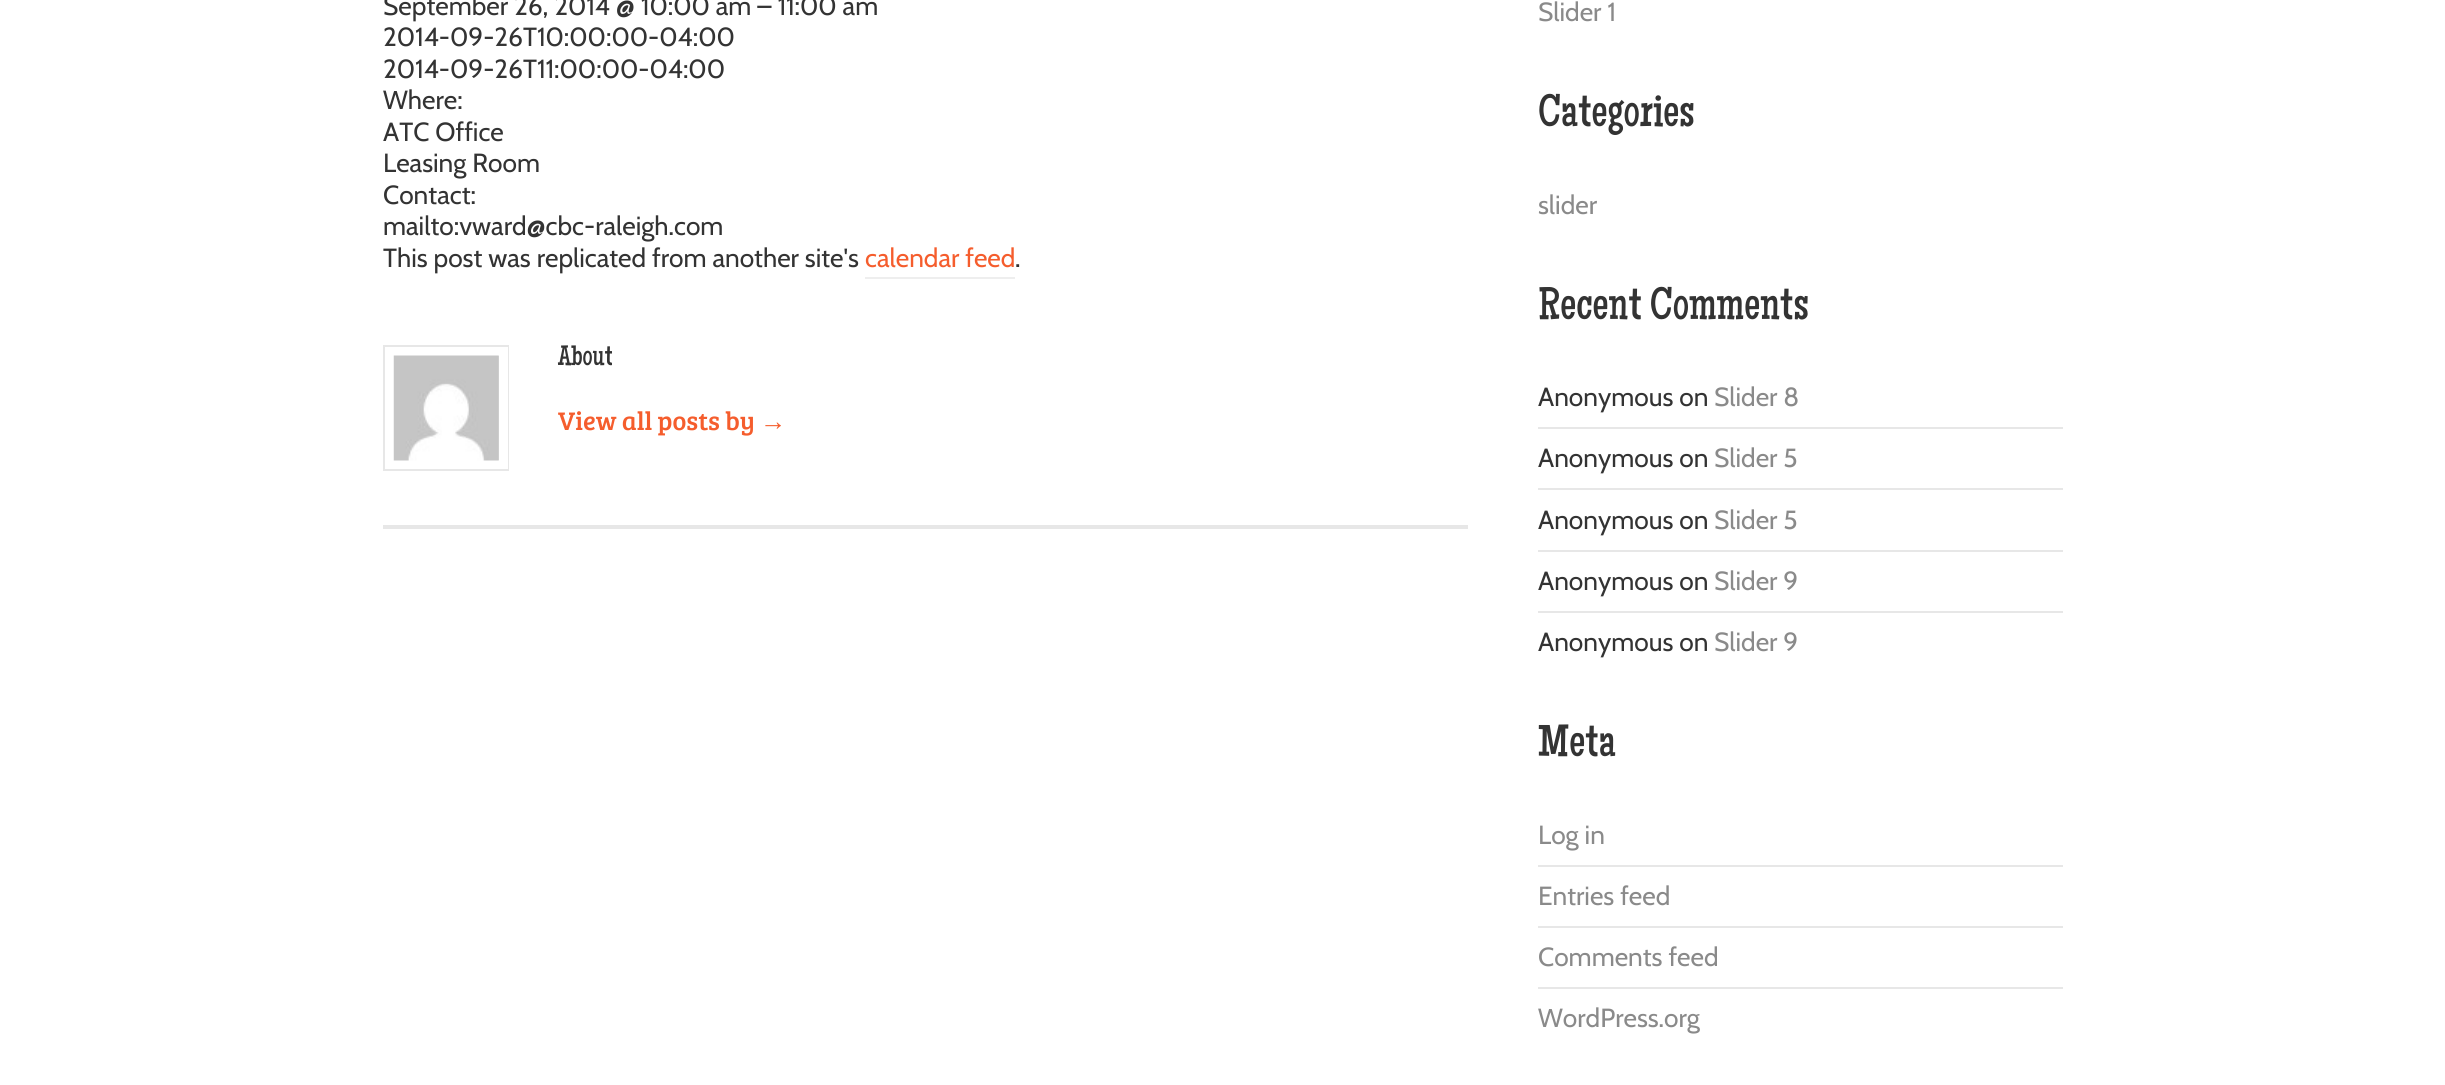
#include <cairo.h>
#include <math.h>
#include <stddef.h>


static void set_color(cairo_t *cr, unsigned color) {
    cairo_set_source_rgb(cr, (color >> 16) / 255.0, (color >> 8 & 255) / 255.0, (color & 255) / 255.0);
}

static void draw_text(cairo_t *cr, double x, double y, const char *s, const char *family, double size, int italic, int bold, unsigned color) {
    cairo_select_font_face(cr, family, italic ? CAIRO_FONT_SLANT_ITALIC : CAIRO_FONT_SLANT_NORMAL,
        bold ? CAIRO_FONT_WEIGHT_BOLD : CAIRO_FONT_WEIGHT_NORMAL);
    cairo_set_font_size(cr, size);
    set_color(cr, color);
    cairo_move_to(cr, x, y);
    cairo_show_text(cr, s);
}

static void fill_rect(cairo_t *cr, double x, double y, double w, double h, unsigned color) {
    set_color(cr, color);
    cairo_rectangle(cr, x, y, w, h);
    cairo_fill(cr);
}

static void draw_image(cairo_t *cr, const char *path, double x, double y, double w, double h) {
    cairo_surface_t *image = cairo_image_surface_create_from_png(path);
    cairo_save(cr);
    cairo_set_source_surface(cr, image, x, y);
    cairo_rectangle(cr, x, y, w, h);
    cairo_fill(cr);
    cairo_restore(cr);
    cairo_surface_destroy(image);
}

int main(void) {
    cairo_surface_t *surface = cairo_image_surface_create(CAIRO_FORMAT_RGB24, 2445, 1085);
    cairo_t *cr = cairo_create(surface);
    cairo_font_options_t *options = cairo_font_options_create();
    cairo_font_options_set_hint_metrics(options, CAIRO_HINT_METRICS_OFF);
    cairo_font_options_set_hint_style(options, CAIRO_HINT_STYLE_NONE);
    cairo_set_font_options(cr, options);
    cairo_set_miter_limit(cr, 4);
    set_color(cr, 0xFFFFFF);
    cairo_paint(cr);
    draw_text(cr, 383, 15, "September 26, 2014 @ 10:00 am – 11:00 am", "Cabin", 26.25, 0, 0, 0x333333);
    draw_text(cr, 383, 46, "2014-09-26T10:00:00-04:00", "Cabin", 26.25, 0, 0, 0x333333);
    draw_text(cr, 383, 78, "2014-09-26T11:00:00-04:00", "Cabin", 26.25, 0, 0, 0x333333);
    draw_text(cr, 383, 109, "Where:", "Cabin", 26.25, 0, 0, 0x333333);
    draw_text(cr, 383, 141, "ATC Office", "Cabin", 26.25, 0, 0, 0x333333);
    draw_text(cr, 383, 172, "Leasing Room", "Cabin", 26.25, 0, 0, 0x333333);
    draw_text(cr, 383, 204, "Contact:", "Cabin", 26.25, 0, 0, 0x333333);
    draw_text(cr, 383, 235, "mailto:vward@cbc-raleigh.com", "Cabin", 26.25, 0, 0, 0x333333);
    draw_text(cr, 383, 267, "This post was replicated from another site's", "Cabin", 26.25, 0, 0, 0x333333);
    draw_text(cr, 865, 267, "calendar feed", "Cabin", 26.25, 0, 0, 0xF55D2D);
    fill_rect(cr, 865, 277, 150, 2, 0xEEEEEE);
    draw_text(cr, 1015, 267, ".", "Cabin", 26.25, 0, 0, 0x333333);
    fill_rect(cr, 383, 345, 126, 126, 0xE7E7E7);
    cairo_rectangle(cr, 389.5, 351.5, 114, 113);
    set_color(cr, 0xFFFFFF);
    cairo_set_line_width(cr, 9);
    cairo_stroke(cr);
    draw_image(cr, "assets/img1.png", 393, 355, 106, 106);
    draw_text(cr, 558, 365, "About", "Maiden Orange", 28, 0, 0, 0x333333);
    draw_text(cr, 558, 430, "View all posts by", "Bree Serif", 26.25, 0, 0, 0xF55D2D);
    draw_text(cr, 760, 430, "→", "Liberation Serif", 26.25, 0, 0, 0xF55D2D);
    fill_rect(cr, 383, 525, 1085, 4, 0xE7E7E7);
    draw_text(cr, 1538, 21, "Slider 1", "Cabin", 26.25, 0, 0, 0x8A8A8A);
    draw_text(cr, 1538, 126, "Categories", "Maiden Orange", 45.5, 0, 0, 0x333333);
    draw_text(cr, 1538, 214, "slider", "Cabin", 26.25, 0, 0, 0x8A8A8A);
    draw_text(cr, 1538, 319, "Recent Comments", "Maiden Orange", 45.5, 0, 0, 0x333333);
    fill_rect(cr, 1538, 427, 525, 2, 0xE7E7E7);
    draw_text(cr, 1538, 406, "Anonymous on", "Cabin", 26.25, 0, 0, 0x333333);
    draw_text(cr, 1714, 406, "Slider 8", "Cabin", 26.25, 0, 0, 0x8A8A8A);
    fill_rect(cr, 1538, 488, 525, 2, 0xE7E7E7);
    draw_text(cr, 1538, 467, "Anonymous on", "Cabin", 26.25, 0, 0, 0x333333);
    draw_text(cr, 1714, 467, "Slider 5", "Cabin", 26.25, 0, 0, 0x8A8A8A);
    fill_rect(cr, 1538, 550, 525, 2, 0xE7E7E7);
    draw_text(cr, 1538, 529, "Anonymous on", "Cabin", 26.25, 0, 0, 0x333333);
    draw_text(cr, 1714, 529, "Slider 5", "Cabin", 26.25, 0, 0, 0x8A8A8A);
    fill_rect(cr, 1538, 611, 525, 2, 0xE7E7E7);
    draw_text(cr, 1538, 590, "Anonymous on", "Cabin", 26.25, 0, 0, 0x333333);
    draw_text(cr, 1714, 590, "Slider 9", "Cabin", 26.25, 0, 0, 0x8A8A8A);
    draw_text(cr, 1538, 651, "Anonymous on", "Cabin", 26.25, 0, 0, 0x333333);
    draw_text(cr, 1714, 651, "Slider 9", "Cabin", 26.25, 0, 0, 0x8A8A8A);
    draw_text(cr, 1538, 756, "Meta", "Maiden Orange", 45.5, 0, 0, 0x333333);
    fill_rect(cr, 1538, 865, 525, 2, 0xE7E7E7);
    draw_text(cr, 1538, 844, "Log in", "Cabin", 26.25, 0, 0, 0x8A8A8A);
    fill_rect(cr, 1538, 926, 525, 2, 0xE7E7E7);
    draw_text(cr, 1538, 905, "Entries feed", "Cabin", 26.25, 0, 0, 0x8A8A8A);
    fill_rect(cr, 1538, 987, 525, 2, 0xE7E7E7);
    draw_text(cr, 1538, 966, "Comments feed", "Cabin", 26.25, 0, 0, 0x8A8A8A);
    draw_text(cr, 1538, 1027, "WordPress.org", "Cabin", 26.25, 0, 0, 0x8A8A8A);
    cairo_surface_write_to_png(surface, "output.png");
    cairo_font_options_destroy(options);
    cairo_destroy(cr);
    cairo_surface_destroy(surface);
    return 0;
}
